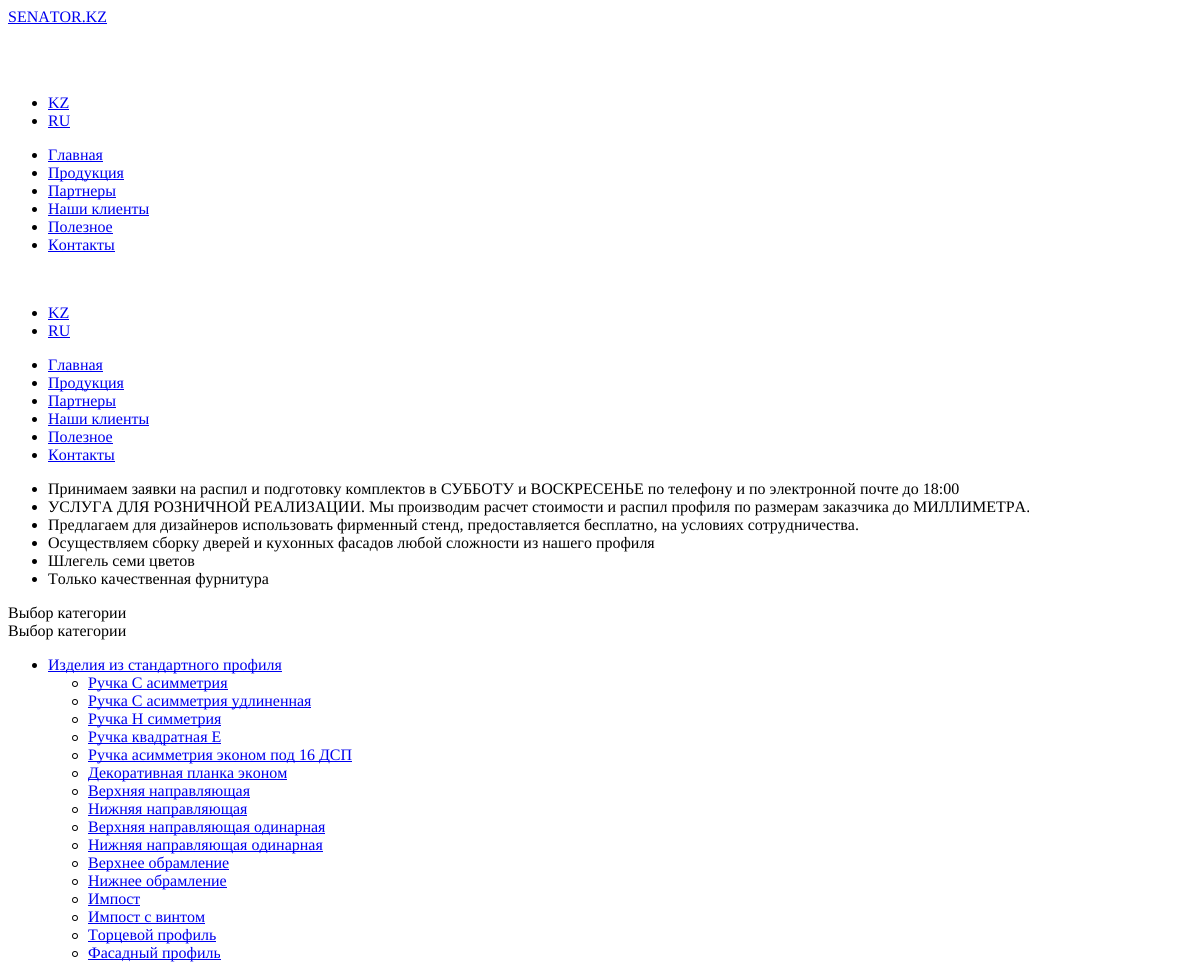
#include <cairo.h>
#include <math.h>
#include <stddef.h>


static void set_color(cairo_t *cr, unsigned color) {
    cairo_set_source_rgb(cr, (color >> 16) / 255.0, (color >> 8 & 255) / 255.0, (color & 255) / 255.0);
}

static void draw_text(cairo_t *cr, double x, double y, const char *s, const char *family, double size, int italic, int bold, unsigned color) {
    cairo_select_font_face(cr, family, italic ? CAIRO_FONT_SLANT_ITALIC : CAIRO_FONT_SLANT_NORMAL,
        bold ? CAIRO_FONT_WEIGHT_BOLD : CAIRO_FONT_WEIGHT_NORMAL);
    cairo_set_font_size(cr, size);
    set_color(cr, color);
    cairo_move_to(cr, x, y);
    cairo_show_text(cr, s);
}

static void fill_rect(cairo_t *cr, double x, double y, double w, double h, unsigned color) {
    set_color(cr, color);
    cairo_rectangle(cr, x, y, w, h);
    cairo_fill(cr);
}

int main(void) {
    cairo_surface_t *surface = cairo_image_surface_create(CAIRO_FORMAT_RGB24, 1179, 967);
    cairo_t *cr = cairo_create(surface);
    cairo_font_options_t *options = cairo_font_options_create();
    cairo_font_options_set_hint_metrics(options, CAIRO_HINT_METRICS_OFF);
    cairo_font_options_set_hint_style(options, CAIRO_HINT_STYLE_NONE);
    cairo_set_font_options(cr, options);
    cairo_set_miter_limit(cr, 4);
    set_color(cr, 0xFFFFFF);
    cairo_paint(cr);
    draw_text(cr, 8, 22, "SENATOR.KZ", "Liberation Serif", 16, 0, 0, 0x0000EE);
    fill_rect(cr, 8, 23, 99, 1, 0x0000EE);
    set_color(cr, 0x000000);
    cairo_new_path(cr);
    cairo_arc(cr, 34.5, 103.5, 2.5, 0, 2 * M_PI);
    cairo_fill(cr);
    draw_text(cr, 48, 108, "KZ", "Liberation Serif", 16, 0, 0, 0x0000EE);
    fill_rect(cr, 48, 109, 21, 1, 0x0000EE);
    set_color(cr, 0x000000);
    cairo_new_path(cr);
    cairo_arc(cr, 34.5, 121.5, 2.5, 0, 2 * M_PI);
    cairo_fill(cr);
    draw_text(cr, 48, 126, "RU", "Liberation Serif", 16, 0, 0, 0x0000EE);
    fill_rect(cr, 48, 127, 22, 1, 0x0000EE);
    set_color(cr, 0x000000);
    cairo_new_path(cr);
    cairo_arc(cr, 34.5, 155.5, 2.5, 0, 2 * M_PI);
    cairo_fill(cr);
    draw_text(cr, 48, 160, "Главная", "Liberation Serif", 16, 0, 0, 0x0000EE);
    fill_rect(cr, 48, 161, 55, 1, 0x0000EE);
    set_color(cr, 0x000000);
    cairo_new_path(cr);
    cairo_arc(cr, 34.5, 173.5, 2.5, 0, 2 * M_PI);
    cairo_fill(cr);
    fill_rect(cr, 48, 179, 76, 1, 0x0000EE);
    draw_text(cr, 48, 178, "Продукция", "Liberation Serif", 16, 0, 0, 0x0000EE);
    set_color(cr, 0x000000);
    cairo_new_path(cr);
    cairo_arc(cr, 34.5, 191.5, 2.5, 0, 2 * M_PI);
    cairo_fill(cr);
    fill_rect(cr, 48, 197, 68, 1, 0x0000EE);
    draw_text(cr, 48, 196, "Партнеры", "Liberation Serif", 16, 0, 0, 0x0000EE);
    set_color(cr, 0x000000);
    cairo_new_path(cr);
    cairo_arc(cr, 34.5, 209.5, 2.5, 0, 2 * M_PI);
    cairo_fill(cr);
    draw_text(cr, 48, 214, "Наши клиенты", "Liberation Serif", 16, 0, 0, 0x0000EE);
    fill_rect(cr, 48, 215, 101, 1, 0x0000EE);
    set_color(cr, 0x000000);
    cairo_new_path(cr);
    cairo_arc(cr, 34.5, 227.5, 2.5, 0, 2 * M_PI);
    cairo_fill(cr);
    draw_text(cr, 48, 232, "Полезное", "Liberation Serif", 16, 0, 0, 0x0000EE);
    fill_rect(cr, 48, 233, 65, 1, 0x0000EE);
    set_color(cr, 0x000000);
    cairo_new_path(cr);
    cairo_arc(cr, 34.5, 245.5, 2.5, 0, 2 * M_PI);
    cairo_fill(cr);
    draw_text(cr, 48, 250, "Контакты", "Liberation Serif", 16, 0, 0, 0x0000EE);
    fill_rect(cr, 48, 251, 67, 1, 0x0000EE);
    set_color(cr, 0x000000);
    cairo_new_path(cr);
    cairo_arc(cr, 34.5, 313.5, 2.5, 0, 2 * M_PI);
    cairo_fill(cr);
    draw_text(cr, 48, 318, "KZ", "Liberation Serif", 16, 0, 0, 0x0000EE);
    fill_rect(cr, 48, 319, 21, 1, 0x0000EE);
    set_color(cr, 0x000000);
    cairo_new_path(cr);
    cairo_arc(cr, 34.5, 331.5, 2.5, 0, 2 * M_PI);
    cairo_fill(cr);
    draw_text(cr, 48, 336, "RU", "Liberation Serif", 16, 0, 0, 0x0000EE);
    fill_rect(cr, 48, 337, 22, 1, 0x0000EE);
    set_color(cr, 0x000000);
    cairo_new_path(cr);
    cairo_arc(cr, 34.5, 365.5, 2.5, 0, 2 * M_PI);
    cairo_fill(cr);
    draw_text(cr, 48, 370, "Главная", "Liberation Serif", 16, 0, 0, 0x0000EE);
    fill_rect(cr, 48, 371, 55, 1, 0x0000EE);
    set_color(cr, 0x000000);
    cairo_new_path(cr);
    cairo_arc(cr, 34.5, 383.5, 2.5, 0, 2 * M_PI);
    cairo_fill(cr);
    fill_rect(cr, 48, 389, 76, 1, 0x0000EE);
    draw_text(cr, 48, 388, "Продукция", "Liberation Serif", 16, 0, 0, 0x0000EE);
    set_color(cr, 0x000000);
    cairo_new_path(cr);
    cairo_arc(cr, 34.5, 401.5, 2.5, 0, 2 * M_PI);
    cairo_fill(cr);
    fill_rect(cr, 48, 407, 68, 1, 0x0000EE);
    draw_text(cr, 48, 406, "Партнеры", "Liberation Serif", 16, 0, 0, 0x0000EE);
    set_color(cr, 0x000000);
    cairo_new_path(cr);
    cairo_arc(cr, 34.5, 419.5, 2.5, 0, 2 * M_PI);
    cairo_fill(cr);
    draw_text(cr, 48, 424, "Наши клиенты", "Liberation Serif", 16, 0, 0, 0x0000EE);
    fill_rect(cr, 48, 425, 101, 1, 0x0000EE);
    set_color(cr, 0x000000);
    cairo_new_path(cr);
    cairo_arc(cr, 34.5, 437.5, 2.5, 0, 2 * M_PI);
    cairo_fill(cr);
    draw_text(cr, 48, 442, "Полезное", "Liberation Serif", 16, 0, 0, 0x0000EE);
    fill_rect(cr, 48, 443, 65, 1, 0x0000EE);
    set_color(cr, 0x000000);
    cairo_new_path(cr);
    cairo_arc(cr, 34.5, 455.5, 2.5, 0, 2 * M_PI);
    cairo_fill(cr);
    draw_text(cr, 48, 460, "Контакты", "Liberation Serif", 16, 0, 0, 0x0000EE);
    fill_rect(cr, 48, 461, 67, 1, 0x0000EE);
    set_color(cr, 0x000000);
    cairo_new_path(cr);
    cairo_arc(cr, 34.5, 489.5, 2.5, 0, 2 * M_PI);
    cairo_fill(cr);
    draw_text(cr, 48, 494, "Принимаем заявки на распил и подготовку комплектов в СУББОТУ и ВОСКРЕСЕНЬЕ по телефону и по электронной почте до 18:00", "Liberation Serif", 16, 0, 0, 0x000000);
    cairo_new_path(cr);
    cairo_arc(cr, 34.5, 507.5, 2.5, 0, 2 * M_PI);
    cairo_fill(cr);
    draw_text(cr, 48, 512, "УСЛУГА ДЛЯ РОЗНИЧНОЙ РЕАЛИЗАЦИИ. Мы производим расчет стоимости и распил профиля по размерам заказчика до МИЛЛИМЕТРА.", "Liberation Serif", 16, 0, 0, 0x000000);
    cairo_new_path(cr);
    cairo_arc(cr, 34.5, 525.5, 2.5, 0, 2 * M_PI);
    cairo_fill(cr);
    draw_text(cr, 48, 530, "Предлагаем для дизайнеров использовать фирменный стенд, предоставляется бесплатно, на условиях сотрудничества.", "Liberation Serif", 16, 0, 0, 0x000000);
    cairo_new_path(cr);
    cairo_arc(cr, 34.5, 543.5, 2.5, 0, 2 * M_PI);
    cairo_fill(cr);
    draw_text(cr, 48, 548, "Осуществляем сборку дверей и кухонных фасадов любой сложности из нашего профиля", "Liberation Serif", 16, 0, 0, 0x000000);
    cairo_new_path(cr);
    cairo_arc(cr, 34.5, 561.5, 2.5, 0, 2 * M_PI);
    cairo_fill(cr);
    draw_text(cr, 48, 566, "Шлегель семи цветов", "Liberation Serif", 16, 0, 0, 0x000000);
    cairo_new_path(cr);
    cairo_arc(cr, 34.5, 579.5, 2.5, 0, 2 * M_PI);
    cairo_fill(cr);
    draw_text(cr, 48, 584, "Только качественная фурнитура", "Liberation Serif", 16, 0, 0, 0x000000);
    draw_text(cr, 8, 618, "Выбор категории", "Liberation Serif", 16, 0, 0, 0x000000);
    draw_text(cr, 8, 636, "Выбор категории", "Liberation Serif", 16, 0, 0, 0x000000);
    cairo_new_path(cr);
    cairo_arc(cr, 34.5, 665.5, 2.5, 0, 2 * M_PI);
    cairo_fill(cr);
    fill_rect(cr, 48, 671, 234, 1, 0x0000EE);
    draw_text(cr, 48, 670, "Изделия из стандартного профиля", "Liberation Serif", 16, 0, 0, 0x0000EE);
    cairo_new_path(cr);
    cairo_arc(cr, 75, 684, 2.5, 0, 2 * M_PI);
    set_color(cr, 0x000000);
    cairo_set_line_width(cr, 1);
    cairo_stroke(cr);
    fill_rect(cr, 88, 689, 140, 1, 0x0000EE);
    draw_text(cr, 88, 688, "Ручка С асимметрия", "Liberation Serif", 16, 0, 0, 0x0000EE);
    cairo_new_path(cr);
    cairo_arc(cr, 75, 702, 2.5, 0, 2 * M_PI);
    set_color(cr, 0x000000);
    cairo_stroke(cr);
    fill_rect(cr, 88, 707, 223, 1, 0x0000EE);
    draw_text(cr, 88, 706, "Ручка С асимметрия удлиненная", "Liberation Serif", 16, 0, 0, 0x0000EE);
    cairo_new_path(cr);
    cairo_arc(cr, 75, 720, 2.5, 0, 2 * M_PI);
    set_color(cr, 0x000000);
    cairo_stroke(cr);
    fill_rect(cr, 88, 725, 133, 1, 0x0000EE);
    draw_text(cr, 88, 724, "Ручка Н симметрия", "Liberation Serif", 16, 0, 0, 0x0000EE);
    cairo_new_path(cr);
    cairo_arc(cr, 75, 738, 2.5, 0, 2 * M_PI);
    set_color(cr, 0x000000);
    cairo_stroke(cr);
    fill_rect(cr, 88, 743, 133, 1, 0x0000EE);
    draw_text(cr, 88, 742, "Ручка квадратная Е", "Liberation Serif", 16, 0, 0, 0x0000EE);
    cairo_new_path(cr);
    cairo_arc(cr, 75, 756, 2.5, 0, 2 * M_PI);
    set_color(cr, 0x000000);
    cairo_stroke(cr);
    fill_rect(cr, 88, 761, 264, 1, 0x0000EE);
    draw_text(cr, 88, 760, "Ручка асимметрия эконом под 16 ДСП", "Liberation Serif", 16, 0, 0, 0x0000EE);
    cairo_new_path(cr);
    cairo_arc(cr, 75, 774, 2.5, 0, 2 * M_PI);
    set_color(cr, 0x000000);
    cairo_stroke(cr);
    fill_rect(cr, 88, 779, 199, 1, 0x0000EE);
    draw_text(cr, 88, 778, "Декоративная планка эконом", "Liberation Serif", 16, 0, 0, 0x0000EE);
    cairo_new_path(cr);
    cairo_arc(cr, 75, 792, 2.5, 0, 2 * M_PI);
    set_color(cr, 0x000000);
    cairo_stroke(cr);
    fill_rect(cr, 88, 797, 162, 1, 0x0000EE);
    draw_text(cr, 88, 796, "Верхняя направляющая", "Liberation Serif", 16, 0, 0, 0x0000EE);
    cairo_new_path(cr);
    cairo_arc(cr, 75, 810, 2.5, 0, 2 * M_PI);
    set_color(cr, 0x000000);
    cairo_stroke(cr);
    fill_rect(cr, 88, 815, 159, 1, 0x0000EE);
    draw_text(cr, 88, 814, "Нижняя направляющая", "Liberation Serif", 16, 0, 0, 0x0000EE);
    cairo_new_path(cr);
    cairo_arc(cr, 75, 828, 2.5, 0, 2 * M_PI);
    set_color(cr, 0x000000);
    cairo_stroke(cr);
    fill_rect(cr, 88, 833, 237, 1, 0x0000EE);
    draw_text(cr, 88, 832, "Верхняя направляющая одинарная", "Liberation Serif", 16, 0, 0, 0x0000EE);
    cairo_new_path(cr);
    cairo_arc(cr, 75, 846, 2.5, 0, 2 * M_PI);
    set_color(cr, 0x000000);
    cairo_stroke(cr);
    fill_rect(cr, 88, 851, 235, 1, 0x0000EE);
    draw_text(cr, 88, 850, "Нижняя направляющая одинарная", "Liberation Serif", 16, 0, 0, 0x0000EE);
    cairo_new_path(cr);
    cairo_arc(cr, 75, 864, 2.5, 0, 2 * M_PI);
    set_color(cr, 0x000000);
    cairo_stroke(cr);
    fill_rect(cr, 88, 869, 141, 1, 0x0000EE);
    draw_text(cr, 88, 868, "Верхнее обрамление", "Liberation Serif", 16, 0, 0, 0x0000EE);
    cairo_new_path(cr);
    cairo_arc(cr, 75, 882, 2.5, 0, 2 * M_PI);
    set_color(cr, 0x000000);
    cairo_stroke(cr);
    fill_rect(cr, 88, 887, 139, 1, 0x0000EE);
    draw_text(cr, 88, 886, "Нижнее обрамление", "Liberation Serif", 16, 0, 0, 0x0000EE);
    cairo_new_path(cr);
    cairo_arc(cr, 75, 900, 2.5, 0, 2 * M_PI);
    set_color(cr, 0x000000);
    cairo_stroke(cr);
    draw_text(cr, 88, 904, "Импост", "Liberation Serif", 16, 0, 0, 0x0000EE);
    fill_rect(cr, 88, 905, 52, 1, 0x0000EE);
    cairo_new_path(cr);
    cairo_arc(cr, 75, 918, 2.5, 0, 2 * M_PI);
    set_color(cr, 0x000000);
    cairo_stroke(cr);
    draw_text(cr, 88, 922, "Импост с винтом", "Liberation Serif", 16, 0, 0, 0x0000EE);
    fill_rect(cr, 88, 923, 117, 1, 0x0000EE);
    cairo_new_path(cr);
    cairo_arc(cr, 75, 936, 2.5, 0, 2 * M_PI);
    set_color(cr, 0x000000);
    cairo_stroke(cr);
    fill_rect(cr, 88, 941, 128, 1, 0x0000EE);
    draw_text(cr, 88, 940, "Торцевой профиль", "Liberation Serif", 16, 0, 0, 0x0000EE);
    cairo_new_path(cr);
    cairo_arc(cr, 75, 954, 2.5, 0, 2 * M_PI);
    set_color(cr, 0x000000);
    cairo_stroke(cr);
    fill_rect(cr, 88, 959, 133, 1, 0x0000EE);
    draw_text(cr, 88, 958, "Фасадный профиль", "Liberation Serif", 16, 0, 0, 0x0000EE);
    cairo_surface_write_to_png(surface, "output.png");
    cairo_font_options_destroy(options);
    cairo_destroy(cr);
    cairo_surface_destroy(surface);
    return 0;
}
